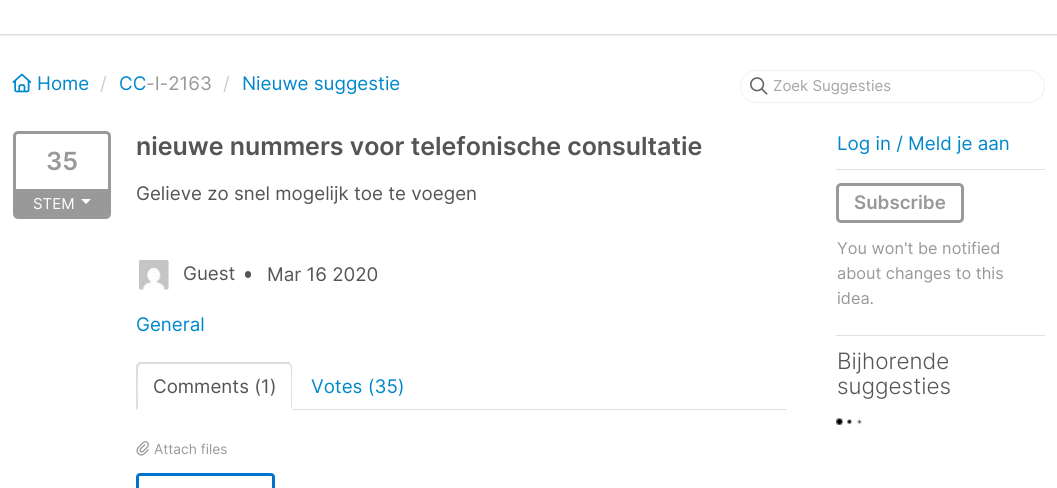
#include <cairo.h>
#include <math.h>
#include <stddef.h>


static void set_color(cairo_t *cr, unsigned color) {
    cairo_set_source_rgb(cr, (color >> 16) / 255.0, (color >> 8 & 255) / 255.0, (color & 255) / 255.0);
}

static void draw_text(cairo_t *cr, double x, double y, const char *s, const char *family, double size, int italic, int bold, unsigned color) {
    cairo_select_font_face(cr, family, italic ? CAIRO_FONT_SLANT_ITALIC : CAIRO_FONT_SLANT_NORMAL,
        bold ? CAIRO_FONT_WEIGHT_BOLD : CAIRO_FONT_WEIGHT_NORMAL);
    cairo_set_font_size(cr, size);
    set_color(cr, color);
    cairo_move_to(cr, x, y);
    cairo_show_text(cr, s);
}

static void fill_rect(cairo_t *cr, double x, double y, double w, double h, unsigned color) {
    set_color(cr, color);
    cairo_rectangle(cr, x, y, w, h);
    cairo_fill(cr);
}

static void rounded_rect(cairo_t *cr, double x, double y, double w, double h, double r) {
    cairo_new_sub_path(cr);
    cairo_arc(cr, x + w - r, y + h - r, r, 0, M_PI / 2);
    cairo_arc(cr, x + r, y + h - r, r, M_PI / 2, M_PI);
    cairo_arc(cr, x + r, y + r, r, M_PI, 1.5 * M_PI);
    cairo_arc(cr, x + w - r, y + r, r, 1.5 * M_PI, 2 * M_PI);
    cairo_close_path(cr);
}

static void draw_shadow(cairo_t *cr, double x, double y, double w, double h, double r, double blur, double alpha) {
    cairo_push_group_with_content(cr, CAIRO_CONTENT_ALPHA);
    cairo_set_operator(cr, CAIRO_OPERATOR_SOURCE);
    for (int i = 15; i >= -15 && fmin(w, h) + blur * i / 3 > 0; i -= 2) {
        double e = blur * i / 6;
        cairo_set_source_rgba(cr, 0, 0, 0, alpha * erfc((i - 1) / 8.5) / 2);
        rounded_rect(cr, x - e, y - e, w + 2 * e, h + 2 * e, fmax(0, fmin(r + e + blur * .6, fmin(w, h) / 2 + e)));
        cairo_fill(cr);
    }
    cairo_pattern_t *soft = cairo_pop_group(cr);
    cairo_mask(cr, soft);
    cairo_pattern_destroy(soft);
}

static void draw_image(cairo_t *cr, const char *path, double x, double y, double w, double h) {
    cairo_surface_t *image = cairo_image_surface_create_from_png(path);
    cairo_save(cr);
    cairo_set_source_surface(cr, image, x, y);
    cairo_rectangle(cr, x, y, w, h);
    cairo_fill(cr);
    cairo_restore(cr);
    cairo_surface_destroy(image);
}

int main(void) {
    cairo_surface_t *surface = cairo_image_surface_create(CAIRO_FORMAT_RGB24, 1057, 488);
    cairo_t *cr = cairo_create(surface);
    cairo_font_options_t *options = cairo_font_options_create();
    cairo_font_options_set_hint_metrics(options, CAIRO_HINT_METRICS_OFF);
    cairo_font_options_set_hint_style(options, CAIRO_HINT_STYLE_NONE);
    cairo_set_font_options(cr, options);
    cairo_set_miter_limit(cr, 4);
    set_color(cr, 0xFFFFFF);
    cairo_paint(cr);
    set_color(cr, 0x000000);
    draw_shadow(cr, 0, -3, 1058, 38, 0, 1, 0.2);
    fill_rect(cr, 0, 0, 1057, 34, 0xFFFFFF);
    draw_image(cr, "assets/img1.png", 12, 73, 20, 20);
    draw_text(cr, 37, 90, "Home", "Inter", 18.75, 0, 0, 0x0088CC);
    draw_text(cr, 100, 90, "/", "Inter", 18.75, 0, 0, 0xCCCCCC);
    draw_text(cr, 119, 90, "CC", "Inter", 18.75, 0, 0, 0x0088CC);
    draw_text(cr, 146, 90, "-I-2163", "Inter", 18.75, 0, 0, 0x999999);
    draw_text(cr, 223, 90, "/", "Inter", 18.75, 0, 0, 0xCCCCCC);
    draw_text(cr, 242, 90, "Nieuwe suggestie", "Inter", 18.75, 0, 0, 0x0088CC);
    rounded_rect(cr, 740.5, 70.5, 304, 32, 16);
    set_color(cr, 0xF1F1F1);
    cairo_set_line_width(cr, 1);
    cairo_stroke(cr);
    draw_image(cr, "assets/img2.png", 750, 77, 18, 18);
    draw_text(cr, 773, 91, "Zoek Suggesties", "Inter", 15, 0, 0, 0xA5A5A5);
    rounded_rect(cr, 14.5, 132.5, 95, 85, 3.5);
    set_color(cr, 0x999999);
    cairo_set_line_width(cr, 3);
    cairo_stroke(cr);
    draw_text(cr, 46, 170, "35", "Inter SemiBold", 25, 0, 0, 0x999999);
    fill_rect(cr, 16, 189, 92, 27, 0x999999);
    draw_text(cr, 33, 209, "STEM", "Inter", 15, 0, 0, 0xFFFFFF);
    cairo_new_path(cr);
    cairo_move_to(cr, 81, 199);
    cairo_line_to(cr, 91, 199);
    cairo_line_to(cr, 86, 204);
    cairo_close_path(cr);
    cairo_fill(cr);
    draw_text(cr, 136, 155, "nieuwe nummers voor telefonische consultatie", "Inter SemiBold", 25, 0, 0, 0x555555);
    draw_text(cr, 136, 200, "Gelieve zo snel mogelijk toe te voegen", "Inter", 18.75, 0, 0, 0x555555);
    draw_image(cr, "assets/img3.png", 138, 260, 31, 30);
    draw_text(cr, 183, 280, "Guest", "Inter", 18.75, 0, 0, 0x555555);
    rounded_rect(cr, 245, 271, 6, 7, 3);
    cairo_fill(cr);
    draw_text(cr, 267, 281, "Mar 16 2020", "Inter", 18.75, 0, 0, 0x555555);
    draw_text(cr, 136, 331, "General", "Inter", 18.75, 0, 0, 0x0088CC);
    fill_rect(cr, 293, 409, 493, 1, 0xDDDDDD);
    cairo_new_path(cr);
    cairo_move_to(cr, 141, 364);
    cairo_line_to(cr, 139, 365);
    cairo_line_to(cr, 137, 364);
    cairo_line_to(cr, 139, 362);
    cairo_line_to(cr, 289, 362);
    cairo_line_to(cr, 291, 364);
    cairo_line_to(cr, 290, 365);
    cairo_line_to(cr, 288, 364);
    cairo_close_path(cr);
    cairo_fill(cr);
    cairo_new_path(cr);
    cairo_move_to(cr, 291, 364);
    cairo_curve_to(cr, 292, 365, 292, 367, 292, 368);
    cairo_line_to(cr, 292, 410);
    cairo_line_to(cr, 291, 408);
    cairo_curve_to(cr, 291, 403, 292, 367, 290, 365);
    cairo_close_path(cr);
    cairo_fill(cr);
    cairo_new_path(cr);
    cairo_move_to(cr, 136, 410);
    cairo_line_to(cr, 136, 366);
    cairo_line_to(cr, 137, 364);
    cairo_line_to(cr, 139, 365);
    cairo_curve_to(cr, 137, 367, 138, 403, 138, 408);
    cairo_close_path(cr);
    cairo_fill(cr);
    draw_text(cr, 153, 393, "Comments (1)", "Inter", 18.75, 0, 0, 0x555555);
    draw_text(cr, 311, 393, "Votes (35)", "Inter", 18.75, 0, 0, 0x0088CC);
    draw_image(cr, "assets/img4.png", 136, 441, 13, 15);
    draw_text(cr, 154, 454, "Attach files", "Inter", 13.75, 0, 0, 0x999999);
    rounded_rect(cr, 137.5, 474.5, 136, 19, 2.5);
    set_color(cr, 0x0173CF);
    cairo_stroke(cr);
    fill_rect(cr, 836, 169, 209, 1, 0xE1E1E1);
    draw_text(cr, 837, 150, "Log in / Meld je aan", "Inter", 18.75, 0, 0, 0x0088CC);
    fill_rect(cr, 836, 335, 209, 1, 0xE1E1E1);
    rounded_rect(cr, 837.5, 184.5, 125, 37, 3.5);
    set_color(cr, 0x999999);
    cairo_stroke(cr);
    draw_text(cr, 854, 209, "Subscribe", "Inter SemiBold", 18.75, 0, 0, 0x999999);
    draw_text(cr, 837, 254, "You won't be notified", "Inter", 16.25, 0, 0, 0x999999);
    draw_text(cr, 837, 279, "about changes to this", "Inter", 16.25, 0, 0, 0x999999);
    draw_text(cr, 837, 304, "idea.", "Inter", 16.25, 0, 0, 0x999999);
    draw_text(cr, 837, 369, "Bijhorende", "Inter Light", 22.5, 0, 0, 0x555555);
    draw_text(cr, 837, 394, "suggesties", "Inter Light", 22.5, 0, 0, 0x555555);
    draw_image(cr, "assets/img5.png", 836, 418, 26, 7);
    cairo_surface_write_to_png(surface, "output.png");
    cairo_font_options_destroy(options);
    cairo_destroy(cr);
    cairo_surface_destroy(surface);
    return 0;
}
